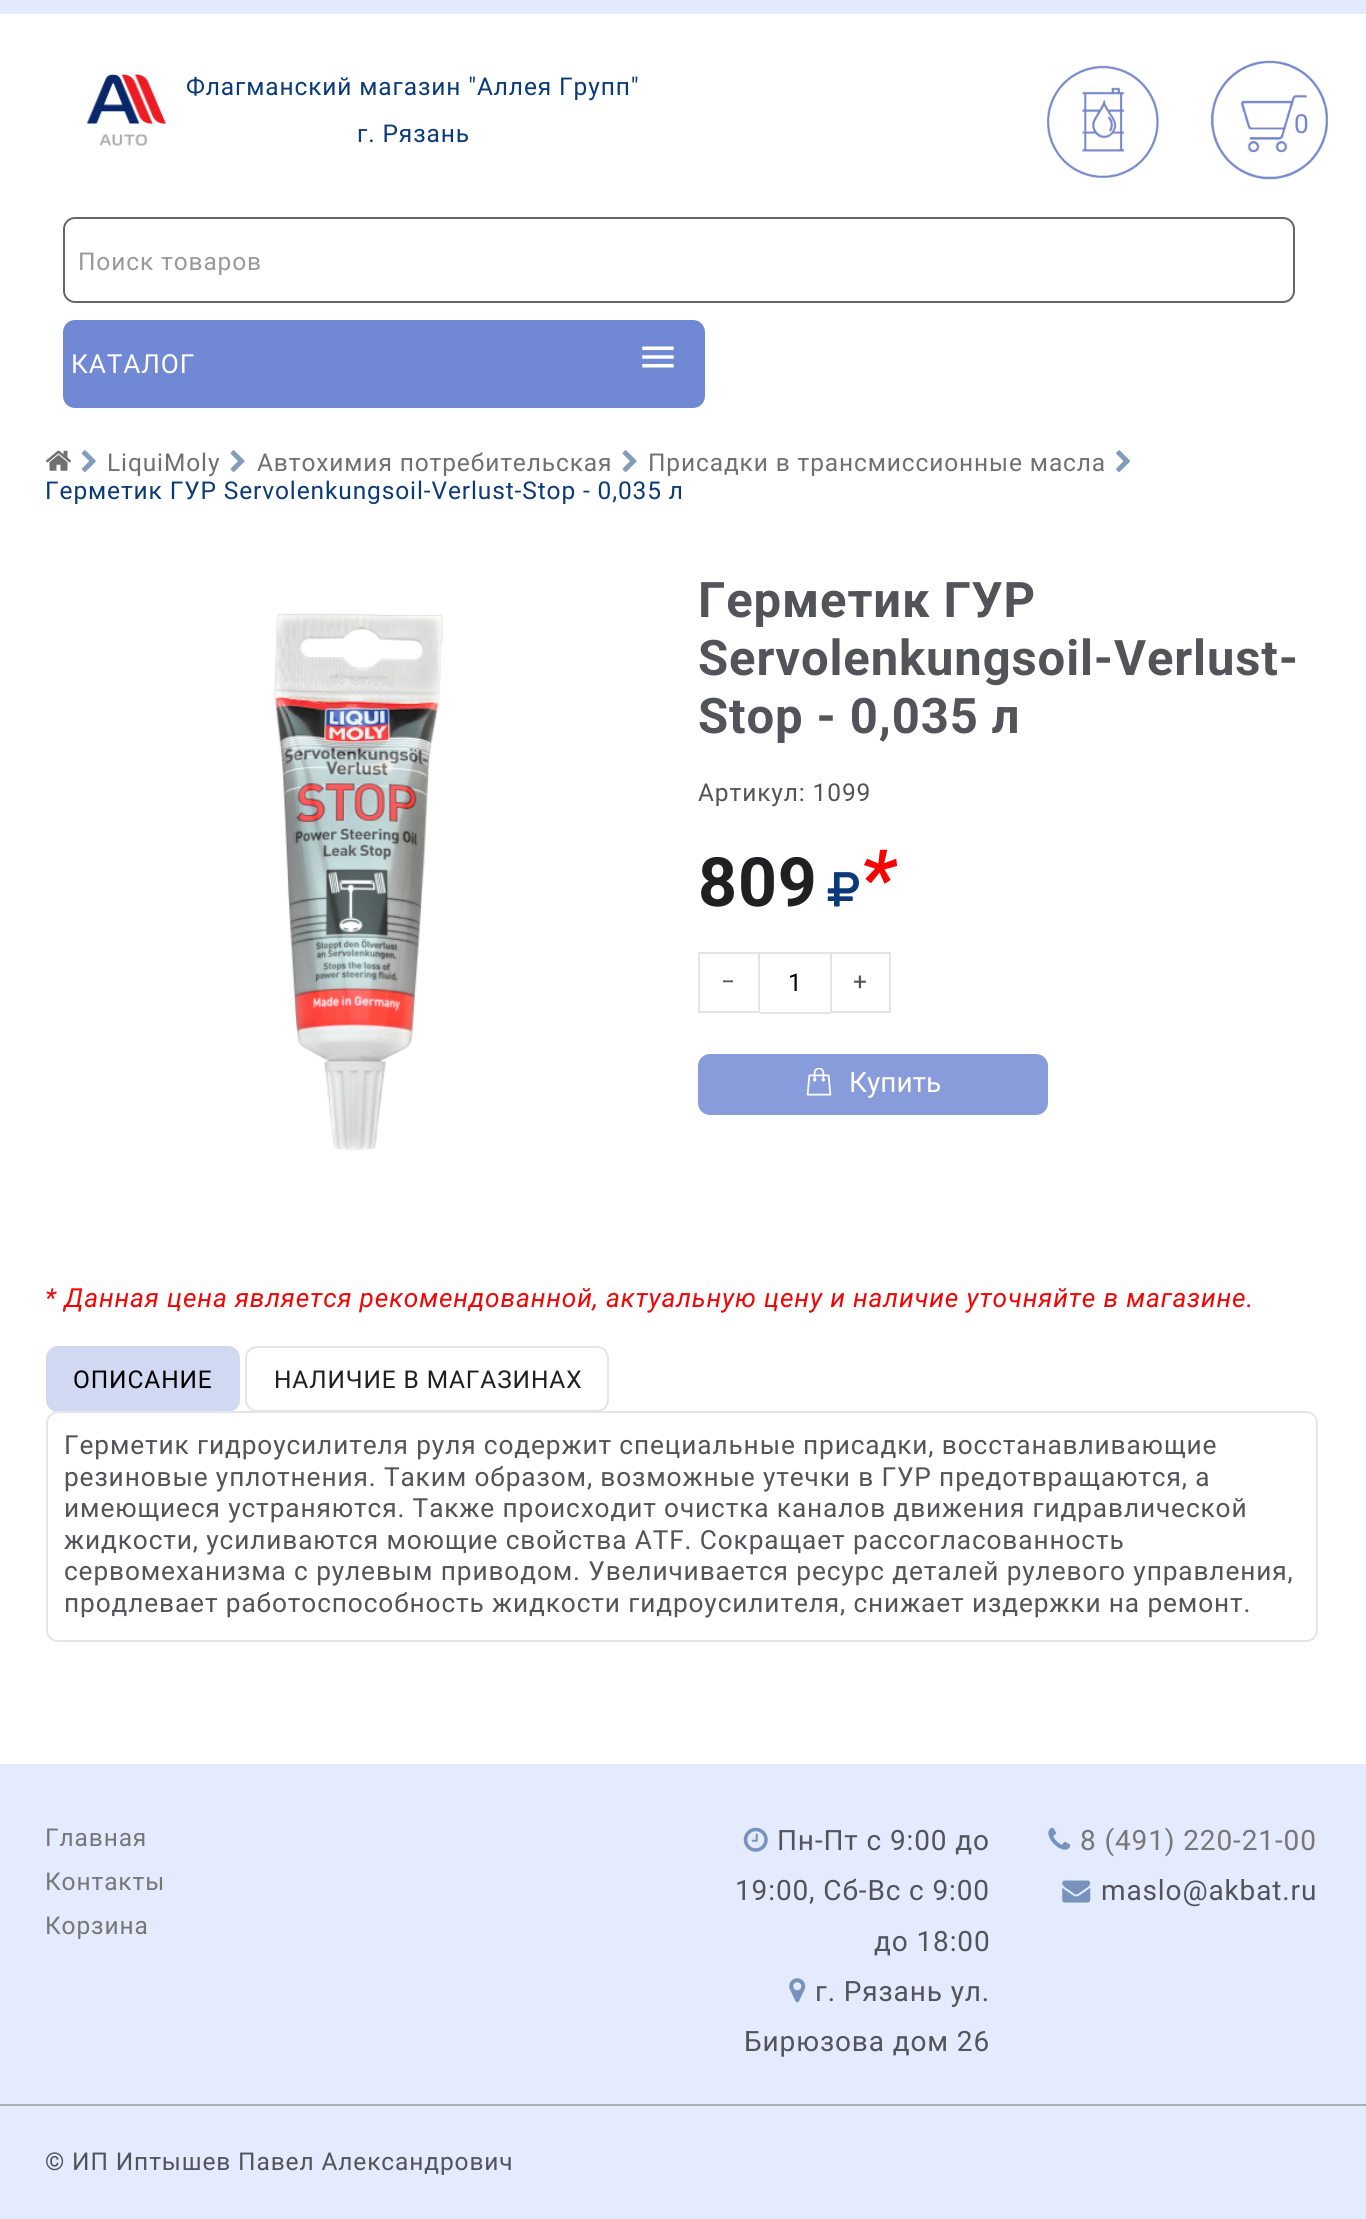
#include <cairo.h>
#include <math.h>
#include <stddef.h>


static void set_color(cairo_t *cr, unsigned color) {
    cairo_set_source_rgb(cr, (color >> 16) / 255.0, (color >> 8 & 255) / 255.0, (color & 255) / 255.0);
}

static void draw_text(cairo_t *cr, double x, double y, const char *s, const char *family, double size, int italic, int bold, unsigned color) {
    cairo_select_font_face(cr, family, italic ? CAIRO_FONT_SLANT_ITALIC : CAIRO_FONT_SLANT_NORMAL,
        bold ? CAIRO_FONT_WEIGHT_BOLD : CAIRO_FONT_WEIGHT_NORMAL);
    cairo_set_font_size(cr, size);
    set_color(cr, color);
    cairo_move_to(cr, x, y);
    cairo_show_text(cr, s);
}

static void draw_spaced(cairo_t *cr, double x, double y, const char *s, double letter, double word) {
    cairo_move_to(cr, x, y);
    while (*s) {
        char ch[5] = {0};
        int n = 0;
        do ch[n++] = *s++; while ((*s & 0xC0) == 0x80);
        cairo_show_text(cr, ch);
        cairo_rel_move_to(cr, letter + word * (*ch == ' '), 0);
    }
}

static void fill_rect(cairo_t *cr, double x, double y, double w, double h, unsigned color) {
    set_color(cr, color);
    cairo_rectangle(cr, x, y, w, h);
    cairo_fill(cr);
}

static void rounded_rect(cairo_t *cr, double x, double y, double w, double h, double r) {
    cairo_new_sub_path(cr);
    cairo_arc(cr, x + w - r, y + h - r, r, 0, M_PI / 2);
    cairo_arc(cr, x + r, y + h - r, r, M_PI / 2, M_PI);
    cairo_arc(cr, x + r, y + r, r, M_PI, 1.5 * M_PI);
    cairo_arc(cr, x + w - r, y + r, r, 1.5 * M_PI, 2 * M_PI);
    cairo_close_path(cr);
}

static void draw_image(cairo_t *cr, const char *path, double x, double y, double w, double h) {
    cairo_surface_t *image = cairo_image_surface_create_from_png(path);
    cairo_save(cr);
    cairo_set_source_surface(cr, image, x, y);
    cairo_rectangle(cr, x, y, w, h);
    cairo_fill(cr);
    cairo_restore(cr);
    cairo_surface_destroy(image);
}

int main(void) {
    cairo_surface_t *surface = cairo_image_surface_create(CAIRO_FORMAT_RGB24, 1366, 2219);
    cairo_t *cr = cairo_create(surface);
    cairo_font_options_t *options = cairo_font_options_create();
    cairo_font_options_set_hint_metrics(options, CAIRO_HINT_METRICS_OFF);
    cairo_font_options_set_hint_style(options, CAIRO_HINT_STYLE_NONE);
    cairo_set_font_options(cr, options);
    cairo_set_miter_limit(cr, 4);
    set_color(cr, 0xFFFFFF);
    cairo_paint(cr);
    fill_rect(cr, 0, 0, 1366, 14, 0xE5EBFF);
    draw_image(cr, "assets/img1.png", 86, 74, 80, 72);
    cairo_select_font_face(cr, "Roboto", CAIRO_FONT_SLANT_NORMAL, CAIRO_FONT_WEIGHT_NORMAL);
    cairo_set_font_size(cr, 24.5);
    set_color(cr, 0x0A3A7A);
    draw_spaced(cr, 186, 95, "Флагманский магазин \"Аллея Групп\"", 0.88, 0);
    draw_spaced(cr, 357, 142, "г. Рязань", 0.88, 0);
    draw_image(cr, "assets/img2.png", 1046, 65, 113, 113);
    draw_image(cr, "assets/img3.png", 1210, 60, 118, 120);
    cairo_set_font_size(cr, 26.25);
    set_color(cr, 0x7288D1);
    draw_spaced(cr, 1294, 133, "0", 0.88, 0);
    rounded_rect(cr, 64, 218, 1230, 84, 11);
    set_color(cr, 0x666666);
    cairo_stroke(cr);
    cairo_set_font_size(cr, 24.5);
    set_color(cr, 0x999999);
    draw_spaced(cr, 78, 270, "Поиск товаров", 0.88, 0);
    set_color(cr, 0x7188D4);
    rounded_rect(cr, 63, 320, 642, 88, 12);
    cairo_fill(cr);
    cairo_set_font_size(cr, 26.25);
    set_color(cr, 0xFFFFFF);
    draw_spaced(cr, 71, 373, "КАТАЛОГ", 0.88, 0);
    draw_image(cr, "assets/img4.png", 642, 346, 32, 22);
    draw_image(cr, "assets/img5.png", 46, 450, 25, 21);
    draw_image(cr, "assets/img6.png", 81, 450, 15, 22);
    cairo_set_font_size(cr, 24.5);
    set_color(cr, 0x707070);
    draw_spaced(cr, 107, 471, "LiquiMoly", 0.88, 0);
    draw_image(cr, "assets/img7.png", 230, 450, 15, 23);
    draw_spaced(cr, 257, 471, "Автохимия потребительская", 0.88, 0);
    draw_image(cr, "assets/img7.png", 622, 450, 15, 23);
    draw_spaced(cr, 648, 471, "Присадки в трансмиссионные масла", 0.88, 0);
    draw_image(cr, "assets/img8.png", 1116, 450, 14, 22);
    set_color(cr, 0x0A3A7A);
    draw_spaced(cr, 45, 499, "Герметик ГУР Servolenkungsoil-Verlust-Stop - 0,035 л", 0.88, 0);
    draw_image(cr, "assets/img9.png", 274, 613, 169, 538);
    cairo_select_font_face(cr, "Roboto", CAIRO_FONT_SLANT_NORMAL, CAIRO_FONT_WEIGHT_BOLD);
    cairo_set_font_size(cr, 49);
    set_color(cr, 0x52545A);
    draw_spaced(cr, 698, 617, "Герметик ГУР", 0.88, 0);
    draw_spaced(cr, 698, 675, "Servolenkungsoil-Verlust-", 0.88, 0);
    draw_spaced(cr, 698, 733, "Stop - 0,035 л", 0.88, 0);
    cairo_select_font_face(cr, "Roboto", CAIRO_FONT_SLANT_NORMAL, CAIRO_FONT_WEIGHT_NORMAL);
    cairo_set_font_size(cr, 24.5);
    draw_spaced(cr, 698, 801, "Артикул: 1099", 0.88, 0);
    cairo_select_font_face(cr, "Roboto", CAIRO_FONT_SLANT_NORMAL, CAIRO_FONT_WEIGHT_BOLD);
    cairo_set_font_size(cr, 68);
    set_color(cr, 0x1F2022);
    draw_spaced(cr, 698, 906, "809", 0.88, 0);
    draw_image(cr, "assets/img10.png", 827, 872, 32, 35);
    cairo_select_font_face(cr, "Roboto", CAIRO_FONT_SLANT_ITALIC, CAIRO_FONT_WEIGHT_BOLD);
    cairo_set_font_size(cr, 79);
    set_color(cr, 0xF60404);
    draw_spaced(cr, 860, 906, "*", 0.88, 0);
    cairo_rectangle(cr, 699, 953, 60, 59);
    set_color(cr, 0xE5E5E5);
    cairo_stroke(cr);
    cairo_select_font_face(cr, "Roboto", CAIRO_FONT_SLANT_NORMAL, CAIRO_FONT_WEIGHT_NORMAL);
    cairo_set_font_size(cr, 24.5);
    set_color(cr, 0x52545A);
    draw_spaced(cr, 721, 990, "−", 0.88, 0);
    fill_rect(cr, 760, 952, 70, 2, 0xE5E5E5);
    fill_rect(cr, 760, 1012, 70, 2, 0xE5E5E5);
    draw_text(cr, 788, 991, "1", "Roboto", 24.5, 0, 0, 0x000000);
    cairo_rectangle(cr, 831, 953, 59, 59);
    set_color(cr, 0xE5E5E5);
    cairo_stroke(cr);
    set_color(cr, 0x52545A);
    draw_spaced(cr, 853, 990, "+", 0.88, 0);
    set_color(cr, 0x889BDB);
    rounded_rect(cr, 698, 1054, 350, 61, 12);
    cairo_fill(cr);
    draw_image(cr, "assets/img11.png", 806, 1068, 26, 28);
    draw_text(cr, 849, 1092, "Купить", "Roboto", 28, 0, 0, 0xFFFFFF);
    cairo_select_font_face(cr, "Roboto", CAIRO_FONT_SLANT_ITALIC, CAIRO_FONT_WEIGHT_NORMAL);
    cairo_set_font_size(cr, 26.25);
    set_color(cr, 0xF60404);
    draw_spaced(cr, 45, 1307, "* Данная цена является рекомендованной, актуальную цену и наличие уточняйте в магазине.", 0.88, 0);
    set_color(cr, 0xD1D8F1);
    rounded_rect(cr, 47, 1347, 192, 64, 11);
    cairo_fill_preserve(cr);
    cairo_stroke(cr);
    cairo_select_font_face(cr, "Roboto", CAIRO_FONT_SLANT_NORMAL, CAIRO_FONT_WEIGHT_NORMAL);
    cairo_set_font_size(cr, 24.5);
    set_color(cr, 0x000000);
    draw_spaced(cr, 73, 1388, "ОПИСАНИЕ", 0.88, 0);
    rounded_rect(cr, 246, 1347, 362, 64, 11);
    set_color(cr, 0xE5E5E5);
    cairo_stroke(cr);
    set_color(cr, 0x1F2022);
    draw_spaced(cr, 274, 1388, "НАЛИЧИЕ В МАГАЗИНАХ", 0.88, 0);
    rounded_rect(cr, 47, 1412, 1270, 229, 11);
    set_color(cr, 0xE5E5E5);
    cairo_stroke(cr);
    cairo_set_font_size(cr, 26.25);
    set_color(cr, 0x52545A);
    draw_spaced(cr, 64, 1454, "Герметик гидроусилителя руля содержит специальные присадки, восстанавливающие", 0.88, 0);
    draw_spaced(cr, 64, 1486, "резиновые уплотнения. Таким образом, возможные утечки в ГУР предотвращаются, а", 0.88, 0);
    draw_spaced(cr, 64, 1517, "имеющиеся устраняются. Также происходит очистка каналов движения гидравлической", 0.88, 0);
    draw_spaced(cr, 64, 1549, "жидкости, усиливаются моющие свойства ATF. Сокращает рассогласованность", 0.88, 0);
    draw_spaced(cr, 64, 1580, "сервомеханизма с рулевым приводом. Увеличивается ресурс деталей рулевого управления,", 0.88, 0);
    draw_spaced(cr, 64, 1612, "продлевает работоспособность жидкости гидроусилителя, снижает издержки на ремонт.", 0.88, 0);
    fill_rect(cr, 0, 1764, 1366, 455, 0xE5EBFE);
    cairo_set_font_size(cr, 24.5);
    set_color(cr, 0x777777);
    draw_spaced(cr, 45, 1846, "Главная", 0.88, 0);
    draw_spaced(cr, 45, 1890, "Контакты", 0.88, 0);
    draw_spaced(cr, 45, 1934, "Корзина", 0.88, 0);
    draw_image(cr, "assets/img12.png", 743, 1827, 25, 25);
    cairo_set_font_size(cr, 28);
    set_color(cr, 0x52545A);
    draw_spaced(cr, 777, 1850, "Пн-Пт с 9:00 до", 0.88, 0);
    draw_spaced(cr, 735, 1900, "19:00, Сб-Вс с 9:00", 0.88, 0);
    draw_spaced(cr, 874, 1951, "до 18:00", 0.88, 0);
    draw_image(cr, "assets/img13.png", 789, 1978, 17, 25);
    draw_spaced(cr, 815, 2001, "г. Рязань ул.", 0.88, 0);
    draw_spaced(cr, 744, 2051, "Бирюзова дом 26", 0.88, 0);
    draw_image(cr, "assets/img14.png", 1048, 1827, 23, 23);
    set_color(cr, 0x777777);
    draw_spaced(cr, 1080, 1850, "8 (491) 220-21-00", 0.88, 0);
    draw_image(cr, "assets/img15.png", 1062, 1880, 29, 23);
    set_color(cr, 0x52545A);
    draw_spaced(cr, 1101, 1900, "maslo@akbat.ru", 0.88, 0);
    fill_rect(cr, 0, 2104, 1366, 2, 0xADADAD);
    cairo_set_font_size(cr, 24.5);
    set_color(cr, 0x52545A);
    draw_spaced(cr, 45, 2170, "© ИП Иптышев Павел Александрович", 0.88, 0);
    cairo_surface_write_to_png(surface, "output.png");
    cairo_font_options_destroy(options);
    cairo_destroy(cr);
    cairo_surface_destroy(surface);
    return 0;
}
